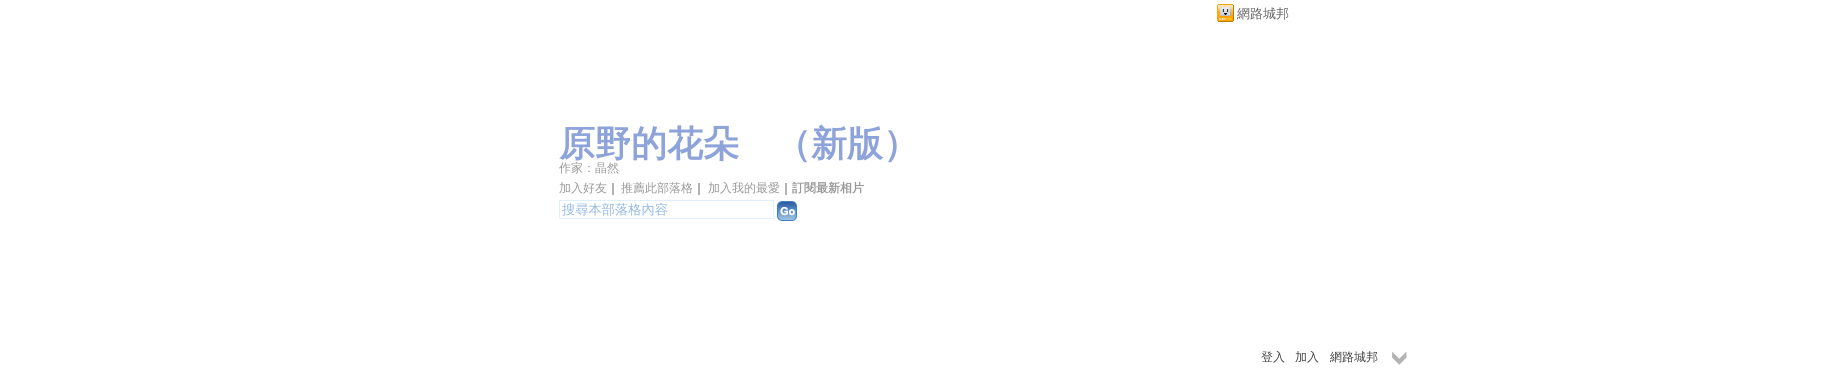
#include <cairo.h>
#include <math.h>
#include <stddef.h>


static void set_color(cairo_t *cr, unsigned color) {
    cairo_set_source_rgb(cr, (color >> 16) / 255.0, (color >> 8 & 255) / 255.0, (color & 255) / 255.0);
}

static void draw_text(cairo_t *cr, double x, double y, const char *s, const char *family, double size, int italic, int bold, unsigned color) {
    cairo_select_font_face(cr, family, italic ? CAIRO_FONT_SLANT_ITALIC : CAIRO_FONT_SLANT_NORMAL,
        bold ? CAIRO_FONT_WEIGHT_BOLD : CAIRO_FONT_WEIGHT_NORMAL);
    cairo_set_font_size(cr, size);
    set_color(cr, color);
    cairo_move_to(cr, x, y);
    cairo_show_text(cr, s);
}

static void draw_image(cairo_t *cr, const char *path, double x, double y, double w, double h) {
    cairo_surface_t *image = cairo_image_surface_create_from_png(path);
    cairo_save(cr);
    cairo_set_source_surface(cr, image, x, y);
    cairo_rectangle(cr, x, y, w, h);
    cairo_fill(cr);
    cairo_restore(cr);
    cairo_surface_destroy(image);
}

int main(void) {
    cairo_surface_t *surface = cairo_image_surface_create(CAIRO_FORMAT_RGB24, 1827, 372);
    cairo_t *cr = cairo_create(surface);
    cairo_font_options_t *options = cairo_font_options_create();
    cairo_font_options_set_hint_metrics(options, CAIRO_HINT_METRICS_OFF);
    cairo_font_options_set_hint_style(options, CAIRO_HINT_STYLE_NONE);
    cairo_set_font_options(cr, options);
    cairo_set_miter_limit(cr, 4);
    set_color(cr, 0xFFFFFF);
    cairo_paint(cr);
    draw_image(cr, "assets/img1.png", 1217, 4, 17, 18);
    draw_text(cr, 1237, 18, "網路城邦", "WenQuanYi Zen Hei Medium", 13, 0, 0, 0x666666);
    draw_text(cr, 559, 156, "原野的花朵", "WenQuanYi Zen Hei", 36, 0, 1, 0x8DA3D9);
    draw_text(cr, 775, 156, "（新版）", "WenQuanYi Zen Hei", 36, 0, 1, 0x8DA3D9);
    draw_text(cr, 559, 172, "作家：晶然", "WenQuanYi Zen Hei Medium", 12, 0, 0, 0x999999);
    draw_text(cr, 559, 192, "加入好友", "WenQuanYi Zen Hei Medium", 12, 0, 0, 0x999999);
    draw_text(cr, 607, 192, "｜", "WenQuanYi Zen Hei Medium", 12, 0, 0, 0x333333);
    draw_text(cr, 621, 192, "推薦此部落格", "WenQuanYi Zen Hei Medium", 12, 0, 0, 0x999999);
    draw_text(cr, 693, 192, "｜", "WenQuanYi Zen Hei Medium", 12, 0, 0, 0x333333);
    draw_text(cr, 708, 192, "加入我的最愛", "WenQuanYi Zen Hei Medium", 12, 0, 0, 0x999999);
    draw_text(cr, 780, 192, "｜", "WenQuanYi Zen Hei Medium", 12, 0, 0, 0x333333);
    draw_text(cr, 792, 192, "訂閱最新相片", "WenQuanYi Zen Hei", 12, 0, 1, 0x999999);
    cairo_rectangle(cr, 559.5, 200.5, 214, 18);
    set_color(cr, 0xE1EFFC);
    cairo_set_line_width(cr, 1);
    cairo_stroke(cr);
    draw_text(cr, 562, 214, "搜尋本部落格內容", "WenQuanYi Zen Hei Medium", 13.25, 0, 0, 0x94B9E2);
    draw_image(cr, "assets/img2.png", 777, 201, 20, 20);
    draw_text(cr, 1261, 361, "登入", "WenQuanYi Zen Hei Medium", 12, 0, 0, 0x444444);
    draw_text(cr, 1295, 361, "加入", "WenQuanYi Zen Hei Medium", 12, 0, 0, 0x444444);
    draw_text(cr, 1330, 361, "網路城邦", "WenQuanYi Zen Hei Medium", 12, 0, 0, 0x444444);
    draw_image(cr, "assets/img3.png", 1392, 351, 15, 14);
    cairo_surface_write_to_png(surface, "output.png");
    cairo_font_options_destroy(options);
    cairo_destroy(cr);
    cairo_surface_destroy(surface);
    return 0;
}
